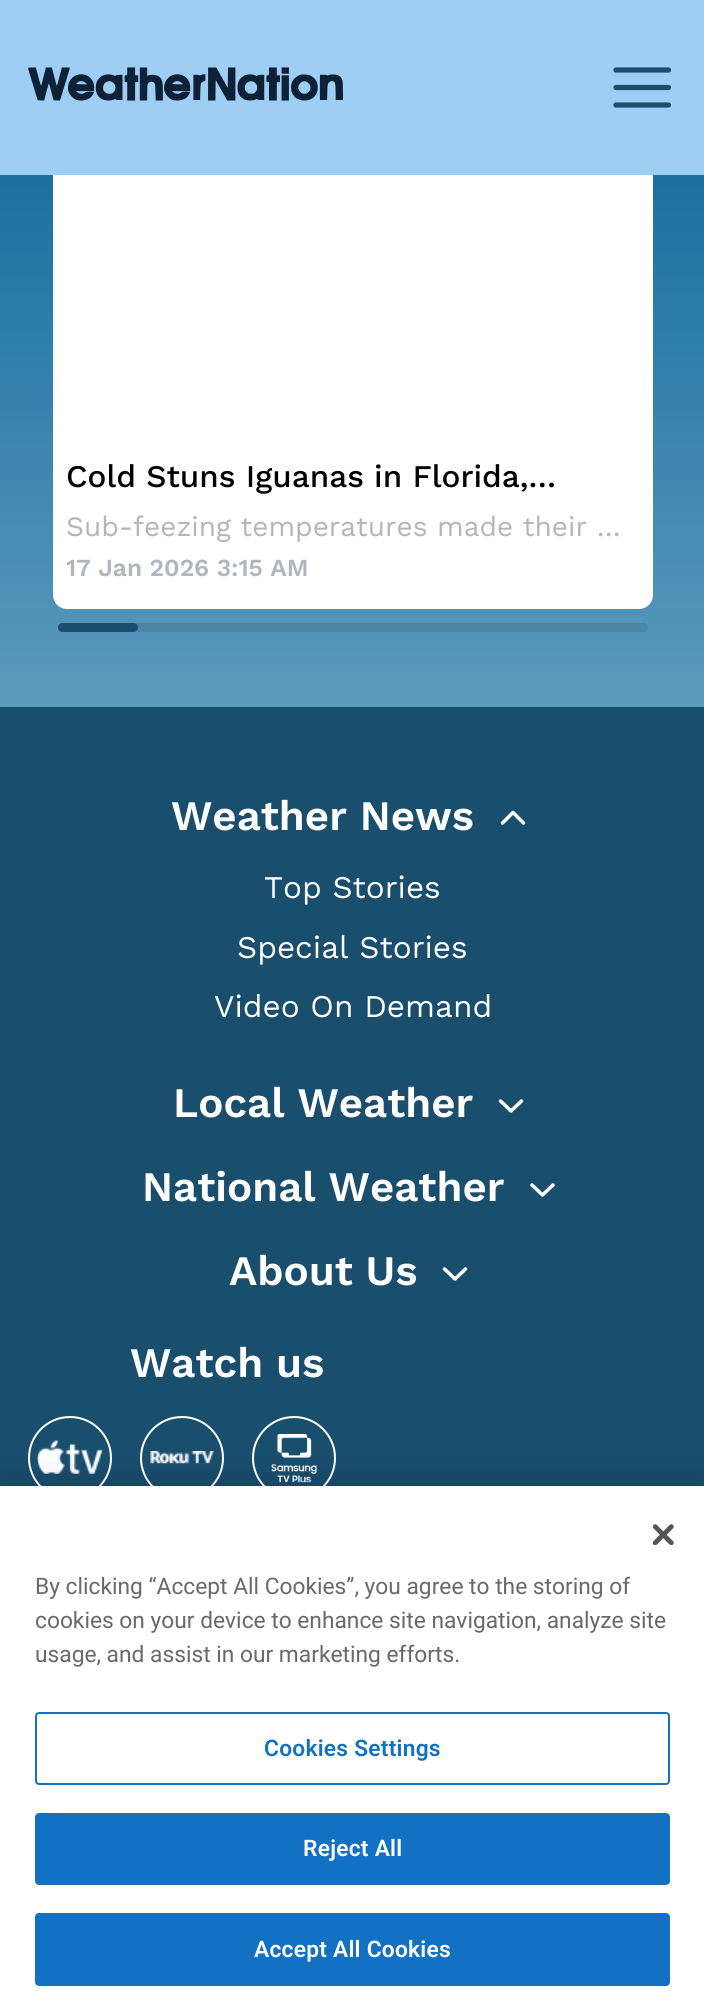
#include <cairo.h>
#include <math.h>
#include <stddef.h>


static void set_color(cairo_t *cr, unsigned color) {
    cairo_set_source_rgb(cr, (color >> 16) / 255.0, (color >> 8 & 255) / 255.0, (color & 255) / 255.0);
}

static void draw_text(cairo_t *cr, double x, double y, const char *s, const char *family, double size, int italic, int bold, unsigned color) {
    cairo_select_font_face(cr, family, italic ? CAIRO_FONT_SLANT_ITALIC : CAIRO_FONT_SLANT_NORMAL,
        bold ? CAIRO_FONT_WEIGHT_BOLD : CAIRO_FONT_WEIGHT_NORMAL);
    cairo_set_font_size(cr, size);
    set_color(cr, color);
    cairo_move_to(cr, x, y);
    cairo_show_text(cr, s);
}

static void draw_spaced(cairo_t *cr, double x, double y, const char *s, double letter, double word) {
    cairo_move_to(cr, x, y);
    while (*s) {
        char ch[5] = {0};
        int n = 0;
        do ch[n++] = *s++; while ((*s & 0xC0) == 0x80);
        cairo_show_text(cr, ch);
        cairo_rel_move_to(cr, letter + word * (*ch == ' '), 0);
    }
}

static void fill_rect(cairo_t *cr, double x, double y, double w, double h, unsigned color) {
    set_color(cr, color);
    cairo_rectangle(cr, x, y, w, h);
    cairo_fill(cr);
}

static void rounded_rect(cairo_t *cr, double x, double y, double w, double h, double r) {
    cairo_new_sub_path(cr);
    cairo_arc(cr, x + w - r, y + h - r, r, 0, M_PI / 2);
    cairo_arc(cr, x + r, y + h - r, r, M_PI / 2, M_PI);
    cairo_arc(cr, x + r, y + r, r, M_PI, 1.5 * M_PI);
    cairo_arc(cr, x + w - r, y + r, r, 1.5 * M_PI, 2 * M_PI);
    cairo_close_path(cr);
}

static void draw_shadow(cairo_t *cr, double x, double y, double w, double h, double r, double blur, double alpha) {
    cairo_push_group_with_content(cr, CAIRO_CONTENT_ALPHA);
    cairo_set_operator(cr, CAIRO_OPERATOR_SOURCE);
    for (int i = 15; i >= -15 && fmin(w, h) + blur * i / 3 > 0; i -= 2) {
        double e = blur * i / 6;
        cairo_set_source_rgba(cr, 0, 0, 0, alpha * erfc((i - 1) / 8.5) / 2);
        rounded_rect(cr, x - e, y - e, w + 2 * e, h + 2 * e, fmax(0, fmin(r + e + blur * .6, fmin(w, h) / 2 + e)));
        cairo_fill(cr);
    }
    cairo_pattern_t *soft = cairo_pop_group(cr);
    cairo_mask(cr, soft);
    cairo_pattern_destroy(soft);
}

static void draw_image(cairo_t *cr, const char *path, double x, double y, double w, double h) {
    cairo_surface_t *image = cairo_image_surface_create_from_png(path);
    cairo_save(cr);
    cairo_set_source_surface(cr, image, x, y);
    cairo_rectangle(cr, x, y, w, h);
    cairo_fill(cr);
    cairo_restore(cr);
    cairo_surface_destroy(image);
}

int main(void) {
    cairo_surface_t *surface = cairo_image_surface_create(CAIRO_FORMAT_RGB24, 704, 2014);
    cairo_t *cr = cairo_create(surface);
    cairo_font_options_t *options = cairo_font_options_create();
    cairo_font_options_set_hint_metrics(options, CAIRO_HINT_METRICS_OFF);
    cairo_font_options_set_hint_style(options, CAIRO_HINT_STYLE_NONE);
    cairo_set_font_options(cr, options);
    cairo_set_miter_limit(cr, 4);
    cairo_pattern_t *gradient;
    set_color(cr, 0xFFFFFF);
    cairo_paint(cr);
    gradient = cairo_pattern_create_linear(353, 0, 353, 2014);
    cairo_pattern_add_color_stop_rgba(gradient, 0, 0.02, 0.388, 0.6, 1);
    cairo_pattern_add_color_stop_rgba(gradient, 1, 1, 1, 1, 1);
    cairo_set_source(cr, gradient);
    cairo_pattern_destroy(gradient);
    cairo_rectangle(cr, 0, 175, 704, 532);
    cairo_fill(cr);
    set_color(cr, 0xFFFFFF);
    rounded_rect(cr, 53, 96, 600, 513, 14);
    cairo_fill(cr);
    fill_rect(cr, 0, 0, 704, 175, 0x9ECEF4);
    draw_image(cr, "assets/img1.png", 28, 67, 315, 34);
    cairo_new_path(cr);
    cairo_move_to(cr, 616, 87.5);
    cairo_line_to(cr, 668.5, 87.5);
    cairo_move_to(cr, 616, 70);
    cairo_line_to(cr, 668.5, 70);
    cairo_move_to(cr, 616, 105);
    cairo_line_to(cr, 668.5, 105);
    set_color(cr, 0x194E6D);
    cairo_set_line_width(cr, 5.2);
    cairo_set_line_cap(cr, CAIRO_LINE_CAP_ROUND);
    cairo_set_line_join(cr, CAIRO_LINE_JOIN_ROUND);
    cairo_stroke(cr);
    draw_text(cr, 66, 487, "Cold Stuns Iguanas in Florida,…", "Work Sans Medium", 31.5, 0, 0, 0x000000);
    draw_text(cr, 66, 536, "Sub-feezing temperatures made their …", "Work Sans", 28, 0, 0, 0xB3B5BD);
    cairo_save(cr);
    cairo_rectangle(cr, 67, 553, 572, 28);
    cairo_clip(cr);
    draw_text(cr, 66, 576, "17 Jan 2026 3:15 AM", "Work Sans SemiBold", 24.5, 0, 0, 0xB3B5BD);
    cairo_restore(cr);
    set_color(cr, 0x4B85A7);
    rounded_rect(cr, 58, 623, 590, 9, 4.5);
    cairo_fill(cr);
    set_color(cr, 0x194E6D);
    rounded_rect(cr, 58, 623, 80, 9, 4.5);
    cairo_fill(cr);
    fill_rect(cr, 0, 707, 704, 779, 0x194E6D);
    draw_text(cr, 171, 830, "Weather News", "Work Sans SemiBold", 42, 0, 0, 0xFFFFFF);
    cairo_new_path(cr);
    cairo_move_to(cr, 523.5, 823);
    cairo_line_to(cr, 513, 812.5);
    cairo_line_to(cr, 502.5, 823);
    cairo_set_line_width(cr, 3.5);
    cairo_stroke(cr);
    draw_text(cr, 264, 898, "Top Stories", "Work Sans", 31.5, 0, 0, 0xFFFFFF);
    draw_text(cr, 237, 958, "Special Stories", "Work Sans", 31.5, 0, 0, 0xFFFFFF);
    draw_text(cr, 214, 1017, "Video On Demand", "Work Sans", 31.5, 0, 0, 0xFFFFFF);
    draw_text(cr, 173, 1117, "Local Weather", "Work Sans SemiBold", 42, 0, 0, 0xFFFFFF);
    cairo_new_path(cr);
    cairo_move_to(cr, 500.5, 1101);
    cairo_line_to(cr, 511, 1111);
    cairo_line_to(cr, 521.5, 1101);
    cairo_stroke(cr);
    draw_text(cr, 142, 1201, "National Weather", "Work Sans SemiBold", 42, 0, 0, 0xFFFFFF);
    cairo_new_path(cr);
    cairo_move_to(cr, 532, 1185);
    cairo_line_to(cr, 542.5, 1195);
    cairo_line_to(cr, 553, 1185);
    cairo_stroke(cr);
    draw_text(cr, 229, 1285, "About Us", "Work Sans SemiBold", 42, 0, 0, 0xFFFFFF);
    cairo_new_path(cr);
    cairo_move_to(cr, 444.5, 1269);
    cairo_line_to(cr, 455, 1279);
    cairo_line_to(cr, 465.5, 1269);
    cairo_stroke(cr);
    draw_text(cr, 130, 1377, "Watch us", "Work Sans SemiBold", 42, 0, 0, 0xFFFFFF);
    cairo_new_path(cr);
    cairo_arc(cr, 70, 1458, 41, 0, 2 * M_PI);
    cairo_set_line_width(cr, 2);
    cairo_set_line_cap(cr, CAIRO_LINE_CAP_BUTT);
    cairo_set_line_join(cr, CAIRO_LINE_JOIN_MITER);
    cairo_stroke(cr);
    draw_image(cr, "assets/img2.png", 37, 1440, 66, 34);
    cairo_arc(cr, 182, 1458, 41, 0, 2 * M_PI);
    cairo_stroke(cr);
    draw_image(cr, "assets/img3.png", 150, 1451, 65, 13);
    cairo_arc(cr, 294, 1458, 41, 0, 2 * M_PI);
    cairo_stroke(cr);
    draw_image(cr, "assets/img4.png", 271, 1434, 46, 49);
    set_color(cr, 0x000000);
    draw_shadow(cr, 0, 1486, 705, 528, 0, 16, 0.2);
    fill_rect(cr, 0, 1486, 704, 528, 0xFFFFFF);
    draw_image(cr, "assets/img5.png", 653, 1524, 21, 21);
    draw_text(cr, 35, 1594, "By clicking “Accept All Cookies”, you agree to the storing of", "Roboto", 22.75, 0, 0, 0x696969);
    draw_text(cr, 35, 1628, "cookies on your device to enhance site navigation, analyze site", "Roboto", 22.75, 0, 0, 0x696969);
    draw_text(cr, 35, 1662, "usage, and assist in our marketing efforts.", "Roboto", 22.75, 0, 0, 0x696969);
    rounded_rect(cr, 36, 1713, 633, 71, 3);
    set_color(cr, 0x1371C3);
    cairo_stroke(cr);
    cairo_select_font_face(cr, "Roboto SemiBold", CAIRO_FONT_SLANT_NORMAL, CAIRO_FONT_WEIGHT_NORMAL);
    draw_spaced(cr, 264, 1756, "Cookies Settings", 0.25, 0);
    rounded_rect(cr, 36, 1814, 633, 70, 3);
    cairo_fill_preserve(cr);
    cairo_stroke(cr);
    set_color(cr, 0xFFFFFF);
    draw_spaced(cr, 303, 1856, "Reject All", 0.25, 0);
    set_color(cr, 0x1371C3);
    rounded_rect(cr, 36, 1914, 633, 71, 3);
    cairo_fill_preserve(cr);
    cairo_stroke(cr);
    set_color(cr, 0xFFFFFF);
    draw_spaced(cr, 254, 1957, "Accept All Cookies", 0.25, 0);
    cairo_surface_write_to_png(surface, "output.png");
    cairo_font_options_destroy(options);
    cairo_destroy(cr);
    cairo_surface_destroy(surface);
    return 0;
}
